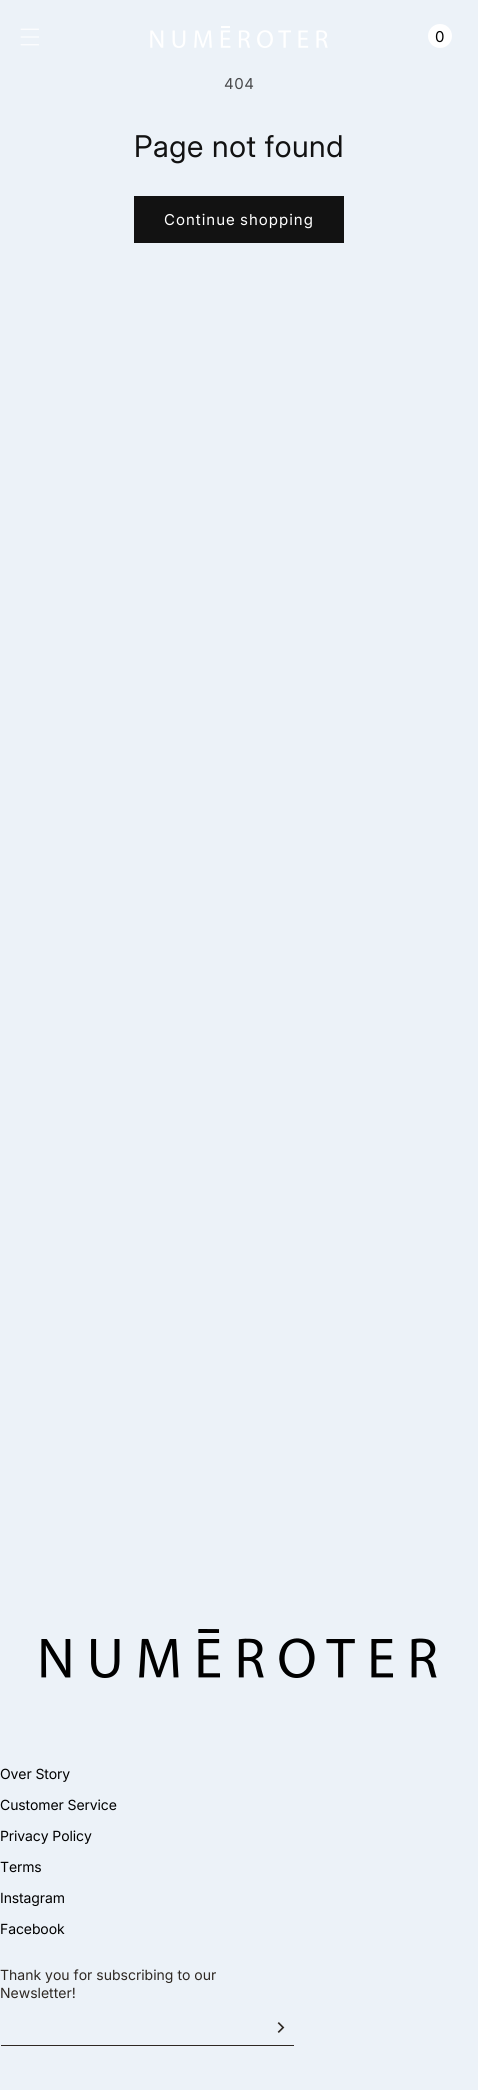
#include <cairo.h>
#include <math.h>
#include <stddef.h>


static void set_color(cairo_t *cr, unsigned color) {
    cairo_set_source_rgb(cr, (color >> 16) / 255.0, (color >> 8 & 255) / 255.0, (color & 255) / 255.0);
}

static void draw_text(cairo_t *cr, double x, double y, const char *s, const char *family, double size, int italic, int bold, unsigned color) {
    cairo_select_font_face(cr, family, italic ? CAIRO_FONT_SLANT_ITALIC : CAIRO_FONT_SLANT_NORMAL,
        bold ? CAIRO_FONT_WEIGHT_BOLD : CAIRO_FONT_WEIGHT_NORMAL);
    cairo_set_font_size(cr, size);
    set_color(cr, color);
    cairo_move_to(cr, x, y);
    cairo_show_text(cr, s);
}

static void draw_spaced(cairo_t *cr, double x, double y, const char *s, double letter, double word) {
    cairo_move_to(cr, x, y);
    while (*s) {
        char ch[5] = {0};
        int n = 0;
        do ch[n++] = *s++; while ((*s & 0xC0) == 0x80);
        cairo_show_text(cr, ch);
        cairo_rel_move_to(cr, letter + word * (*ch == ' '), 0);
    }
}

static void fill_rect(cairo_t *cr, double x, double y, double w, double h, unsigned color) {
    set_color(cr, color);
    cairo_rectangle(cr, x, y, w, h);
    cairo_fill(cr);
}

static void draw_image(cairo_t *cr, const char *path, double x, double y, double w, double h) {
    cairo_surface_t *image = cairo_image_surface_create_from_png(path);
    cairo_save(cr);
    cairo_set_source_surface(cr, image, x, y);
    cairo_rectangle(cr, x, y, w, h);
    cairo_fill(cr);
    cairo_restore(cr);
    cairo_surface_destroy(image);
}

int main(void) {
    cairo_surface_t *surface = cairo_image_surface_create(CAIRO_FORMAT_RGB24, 478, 2090);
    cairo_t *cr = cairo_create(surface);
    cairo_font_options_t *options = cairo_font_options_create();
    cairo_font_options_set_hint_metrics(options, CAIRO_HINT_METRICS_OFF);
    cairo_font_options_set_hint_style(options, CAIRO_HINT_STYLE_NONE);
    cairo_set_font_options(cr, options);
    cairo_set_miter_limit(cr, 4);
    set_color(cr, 0xECF2F8);
    cairo_paint(cr);
    draw_image(cr, "assets/img1.png", 20, 28, 19, 18);
    draw_image(cr, "assets/img2.png", 150, 26, 178, 22);
    set_color(cr, 0xFFFFFF);
    cairo_arc(cr, 440, 36, 12, 0, 2 * M_PI);
    cairo_fill(cr);
    cairo_select_font_face(cr, "Inter", CAIRO_FONT_SLANT_NORMAL, CAIRO_FONT_WEIGHT_NORMAL);
    cairo_set_font_size(cr, 15);
    set_color(cr, 0x000000);
    draw_spaced(cr, 435, 42, "0", 0.6, 0);
    set_color(cr, 0x494A4C);
    draw_spaced(cr, 224, 89, "404", 0.6, 0);
    cairo_select_font_face(cr, "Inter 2", CAIRO_FONT_SLANT_NORMAL, CAIRO_FONT_WEIGHT_NORMAL);
    cairo_set_font_size(cr, 30);
    set_color(cr, 0x121212);
    draw_spaced(cr, 134, 157, "Page not found", 0.6, 0);
    fill_rect(cr, 134, 196, 210, 47, 0x121212);
    cairo_select_font_face(cr, "Inter", CAIRO_FONT_SLANT_NORMAL, CAIRO_FONT_WEIGHT_NORMAL);
    cairo_set_font_size(cr, 15);
    set_color(cr, 0xFFFFFF);
    draw_spaced(cr, 164, 225, "Continue shopping", 1, -1);
    draw_image(cr, "assets/img3.png", 41, 1629, 396, 49);
    cairo_set_font_size(cr, 14);
    set_color(cr, 0x000000);
    draw_spaced(cr, 0, 1779, "Over Story", -0.1, 0);
    draw_spaced(cr, 0, 1810, "Customer Service", -0.1, 0);
    draw_spaced(cr, 0, 1841, "Privacy Policy", -0.1, 0);
    draw_spaced(cr, 0, 1872, "Terms", -0.1, 0);
    draw_spaced(cr, 0, 1903, "Instagram", -0.1, 0);
    draw_spaced(cr, 0, 1934, "Facebook", -0.1, 0);
    draw_text(cr, 0, 1980, "Thank you for subscribing to our", "Inter", 14, 0, 0, 0x2E2823);
    draw_text(cr, 0, 1998, "Newsletter!", "Inter", 14, 0, 0, 0x2E2823);
    draw_image(cr, "assets/img4.png", 277, 2022, 8, 11);
    fill_rect(cr, 1, 2045, 293, 1, 0x2E2823);
    cairo_surface_write_to_png(surface, "output.png");
    cairo_font_options_destroy(options);
    cairo_destroy(cr);
    cairo_surface_destroy(surface);
    return 0;
}
